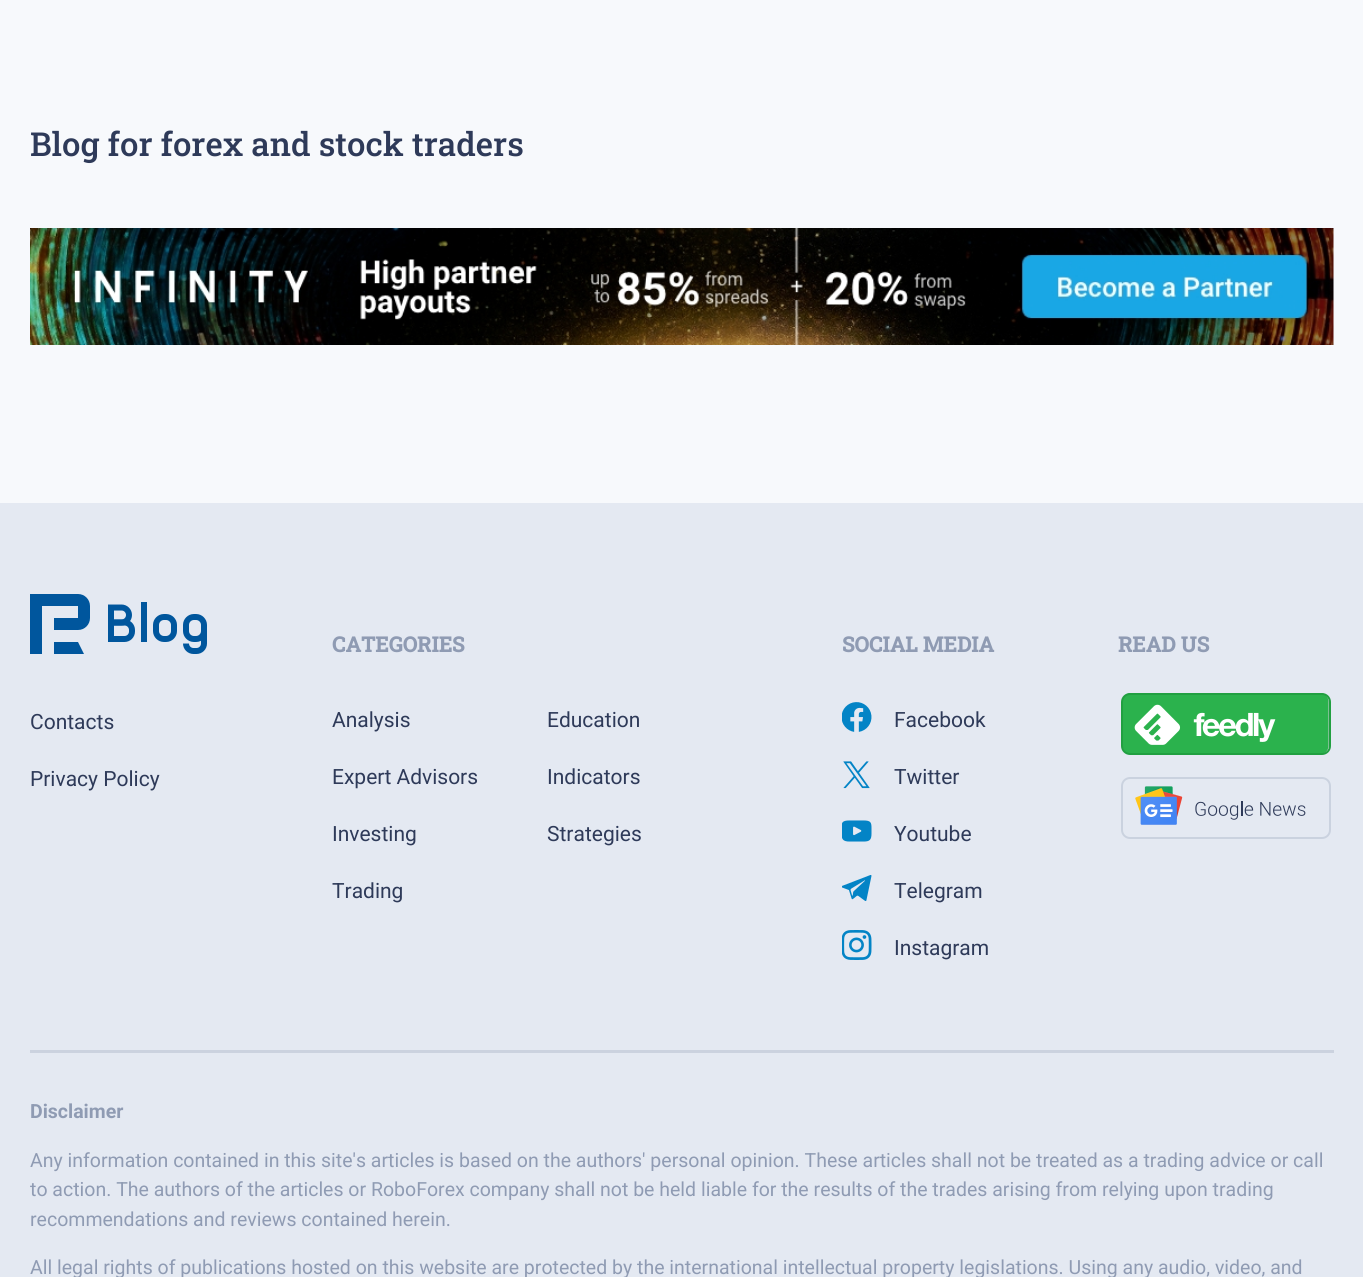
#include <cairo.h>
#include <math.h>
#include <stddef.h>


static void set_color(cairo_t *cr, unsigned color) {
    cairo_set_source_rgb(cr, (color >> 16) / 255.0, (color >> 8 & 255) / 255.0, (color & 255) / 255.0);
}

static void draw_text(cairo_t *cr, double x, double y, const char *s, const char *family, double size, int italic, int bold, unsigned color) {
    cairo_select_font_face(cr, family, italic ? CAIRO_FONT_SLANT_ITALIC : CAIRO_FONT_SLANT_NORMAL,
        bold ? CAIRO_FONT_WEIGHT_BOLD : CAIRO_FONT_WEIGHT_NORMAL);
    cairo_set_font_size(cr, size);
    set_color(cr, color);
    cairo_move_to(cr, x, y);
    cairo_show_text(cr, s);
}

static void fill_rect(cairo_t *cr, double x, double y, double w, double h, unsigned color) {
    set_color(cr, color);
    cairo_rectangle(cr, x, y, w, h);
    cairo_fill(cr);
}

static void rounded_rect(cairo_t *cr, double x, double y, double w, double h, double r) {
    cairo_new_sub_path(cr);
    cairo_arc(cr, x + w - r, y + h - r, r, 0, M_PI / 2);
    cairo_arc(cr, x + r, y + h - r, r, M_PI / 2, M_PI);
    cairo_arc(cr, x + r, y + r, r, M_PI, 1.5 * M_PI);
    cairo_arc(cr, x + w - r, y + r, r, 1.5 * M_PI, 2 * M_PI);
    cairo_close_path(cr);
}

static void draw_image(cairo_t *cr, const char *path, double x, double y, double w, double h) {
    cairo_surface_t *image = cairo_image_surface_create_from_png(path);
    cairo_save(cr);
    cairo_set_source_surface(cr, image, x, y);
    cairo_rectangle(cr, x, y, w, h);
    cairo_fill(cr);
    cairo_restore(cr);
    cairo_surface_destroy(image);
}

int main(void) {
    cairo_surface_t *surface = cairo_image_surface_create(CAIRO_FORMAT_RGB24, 1363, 1277);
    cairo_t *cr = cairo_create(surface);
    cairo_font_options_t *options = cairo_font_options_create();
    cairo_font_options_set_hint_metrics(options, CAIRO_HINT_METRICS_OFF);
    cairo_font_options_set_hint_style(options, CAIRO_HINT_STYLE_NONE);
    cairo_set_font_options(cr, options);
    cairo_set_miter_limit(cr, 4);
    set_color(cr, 0xF7F9FC);
    cairo_paint(cr);
    draw_text(cr, 30, 156, "Blog for forex and stock traders", "Roboto Slab Medium", 33, 0, 0, 0x2E3A59);
    draw_image(cr, "assets/img1.png", 30, 228, 1304, 117);
    fill_rect(cr, 0, 503, 1363, 774, 0xE4E9F2);
    draw_text(cr, 332, 652, "CATEGORIES", "Roboto Slab", 21, 0, 1, 0x8F9BB3);
    draw_text(cr, 332, 727, "Analysis", "Roboto", 21, 0, 0, 0x2E3A59);
    draw_text(cr, 547, 727, "Education", "Roboto", 21, 0, 0, 0x2E3A59);
    draw_text(cr, 332, 784, "Expert Advisors", "Roboto", 21, 0, 0, 0x2E3A59);
    draw_text(cr, 547, 784, "Indicators", "Roboto", 21, 0, 0, 0x2E3A59);
    draw_text(cr, 332, 841, "Investing", "Roboto", 21, 0, 0, 0x2E3A59);
    draw_text(cr, 547, 841, "Strategies", "Roboto", 21, 0, 0, 0x2E3A59);
    draw_text(cr, 332, 898, "Trading", "Roboto", 21, 0, 0, 0x2E3A59);
    draw_text(cr, 842, 652, "SOCIAL MEDIA", "Roboto Slab", 21, 0, 1, 0x8F9BB3);
    draw_image(cr, "assets/img2.png", 842, 702, 30, 30);
    draw_text(cr, 894, 727, "Facebook", "Roboto", 21, 0, 0, 0x2E3A59);
    draw_image(cr, "assets/img3.png", 843, 761, 27, 28);
    draw_text(cr, 894, 784, "Twitter", "Roboto", 21, 0, 0, 0x2E3A59);
    draw_image(cr, "assets/img4.png", 842, 820, 30, 22);
    draw_text(cr, 894, 841, "Youtube", "Roboto", 21, 0, 0, 0x2E3A59);
    draw_image(cr, "assets/img5.png", 842, 875, 30, 26);
    draw_text(cr, 894, 898, "Telegram", "Roboto", 21, 0, 0, 0x2E3A59);
    draw_image(cr, "assets/img6.png", 842, 930, 30, 30);
    draw_text(cr, 894, 955, "Instagram", "Roboto", 21, 0, 0, 0x2E3A59);
    draw_text(cr, 1118, 652, "READ US", "Roboto Slab", 21, 0, 1, 0x8F9BB3);
    draw_image(cr, "assets/img7.png", 1123, 693, 206, 62);
    rounded_rect(cr, 1122, 694, 208, 60, 8);
    set_color(cr, 0x21A041);
    cairo_stroke(cr);
    draw_image(cr, "assets/img8.png", 1135, 786, 171, 39);
    rounded_rect(cr, 1122, 778, 208, 60, 8);
    set_color(cr, 0xCAD2DF);
    cairo_stroke(cr);
    draw_image(cr, "assets/img9.png", 30, 594, 177, 60);
    draw_text(cr, 30, 729, "Contacts", "Roboto", 21, 0, 0, 0x2E3A59);
    draw_text(cr, 30, 786, "Privacy Policy", "Roboto", 21, 0, 0, 0x2E3A59);
    fill_rect(cr, 30, 1050, 1304, 3, 0xCBD2DF);
    draw_text(cr, 30, 1118, "Disclaimer", "Roboto", 19.5, 0, 1, 0x8F9BB3);
    draw_text(cr, 30, 1167, "Any information contained in this site's articles is based on the authors' personal opinion. These articles shall not be treated as a trading advice or call", "Roboto", 19.5, 0, 0, 0x8F9BB3);
    draw_text(cr, 30, 1196, "to action. The authors of the articles or RoboForex company shall not be held liable for the results of the trades arising from relying upon trading", "Roboto", 19.5, 0, 0, 0x8F9BB3);
    draw_text(cr, 30, 1226, "recommendations and reviews contained herein.", "Roboto", 19.5, 0, 0, 0x8F9BB3);
    draw_text(cr, 30, 1274, "All legal rights of publications hosted on this website are protected by the international intellectual property legislations. Using any audio, video, and", "Roboto", 19.5, 0, 0, 0x8F9BB3);
    cairo_surface_write_to_png(surface, "output.png");
    cairo_font_options_destroy(options);
    cairo_destroy(cr);
    cairo_surface_destroy(surface);
    return 0;
}
